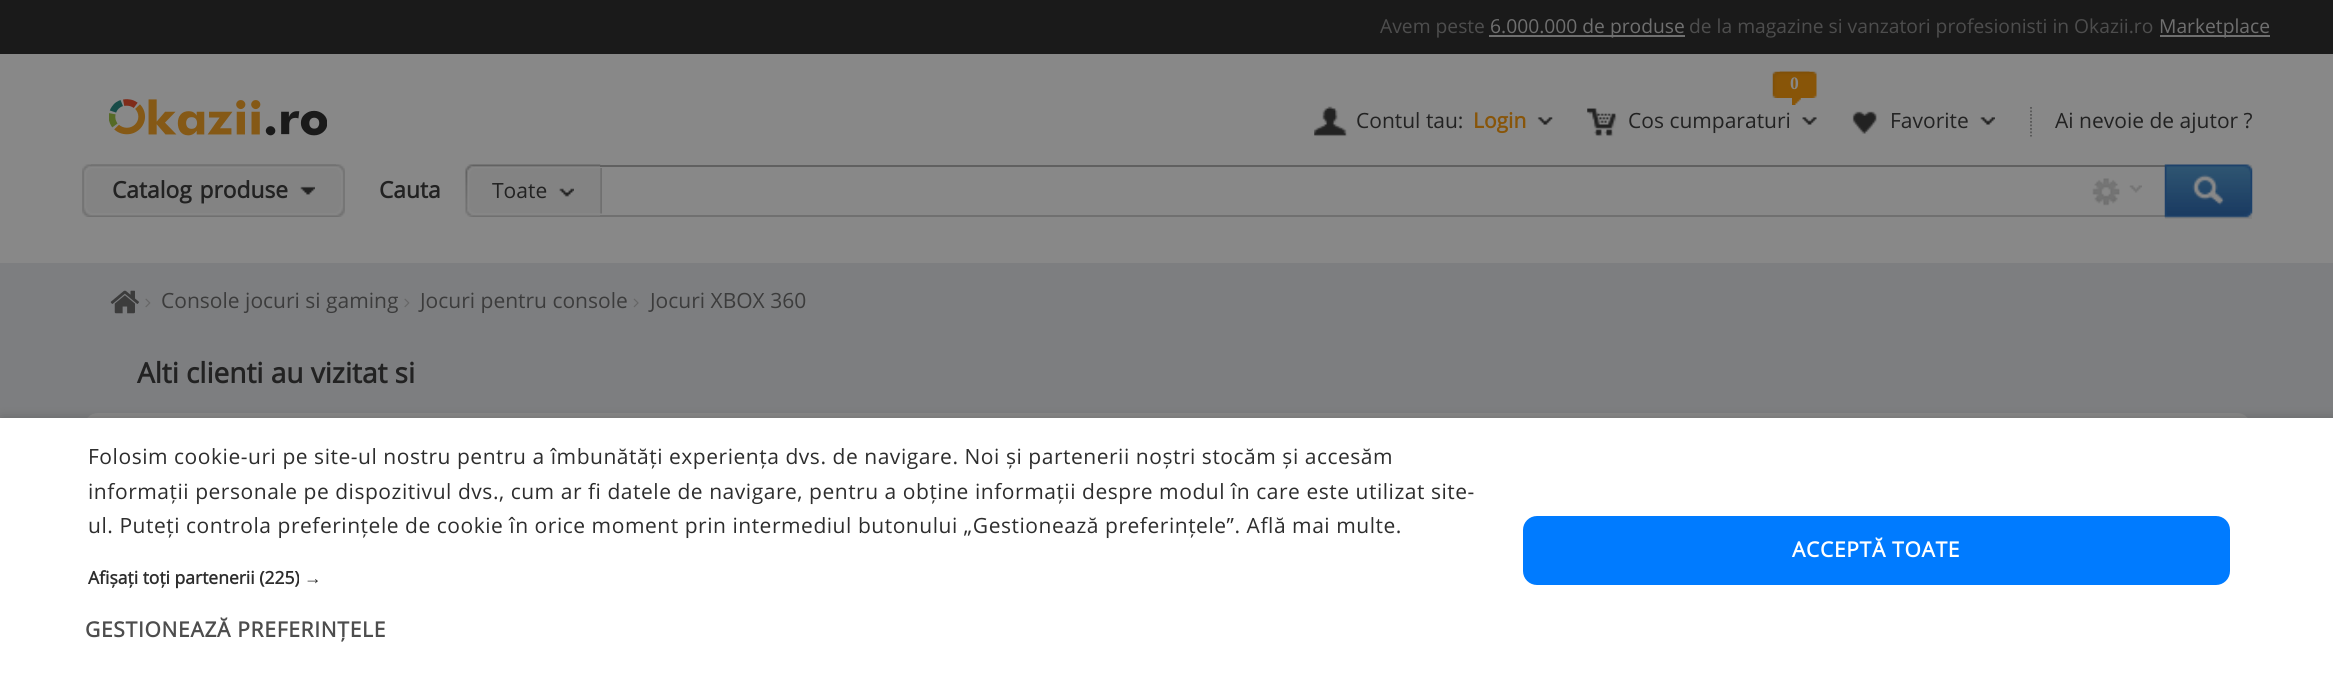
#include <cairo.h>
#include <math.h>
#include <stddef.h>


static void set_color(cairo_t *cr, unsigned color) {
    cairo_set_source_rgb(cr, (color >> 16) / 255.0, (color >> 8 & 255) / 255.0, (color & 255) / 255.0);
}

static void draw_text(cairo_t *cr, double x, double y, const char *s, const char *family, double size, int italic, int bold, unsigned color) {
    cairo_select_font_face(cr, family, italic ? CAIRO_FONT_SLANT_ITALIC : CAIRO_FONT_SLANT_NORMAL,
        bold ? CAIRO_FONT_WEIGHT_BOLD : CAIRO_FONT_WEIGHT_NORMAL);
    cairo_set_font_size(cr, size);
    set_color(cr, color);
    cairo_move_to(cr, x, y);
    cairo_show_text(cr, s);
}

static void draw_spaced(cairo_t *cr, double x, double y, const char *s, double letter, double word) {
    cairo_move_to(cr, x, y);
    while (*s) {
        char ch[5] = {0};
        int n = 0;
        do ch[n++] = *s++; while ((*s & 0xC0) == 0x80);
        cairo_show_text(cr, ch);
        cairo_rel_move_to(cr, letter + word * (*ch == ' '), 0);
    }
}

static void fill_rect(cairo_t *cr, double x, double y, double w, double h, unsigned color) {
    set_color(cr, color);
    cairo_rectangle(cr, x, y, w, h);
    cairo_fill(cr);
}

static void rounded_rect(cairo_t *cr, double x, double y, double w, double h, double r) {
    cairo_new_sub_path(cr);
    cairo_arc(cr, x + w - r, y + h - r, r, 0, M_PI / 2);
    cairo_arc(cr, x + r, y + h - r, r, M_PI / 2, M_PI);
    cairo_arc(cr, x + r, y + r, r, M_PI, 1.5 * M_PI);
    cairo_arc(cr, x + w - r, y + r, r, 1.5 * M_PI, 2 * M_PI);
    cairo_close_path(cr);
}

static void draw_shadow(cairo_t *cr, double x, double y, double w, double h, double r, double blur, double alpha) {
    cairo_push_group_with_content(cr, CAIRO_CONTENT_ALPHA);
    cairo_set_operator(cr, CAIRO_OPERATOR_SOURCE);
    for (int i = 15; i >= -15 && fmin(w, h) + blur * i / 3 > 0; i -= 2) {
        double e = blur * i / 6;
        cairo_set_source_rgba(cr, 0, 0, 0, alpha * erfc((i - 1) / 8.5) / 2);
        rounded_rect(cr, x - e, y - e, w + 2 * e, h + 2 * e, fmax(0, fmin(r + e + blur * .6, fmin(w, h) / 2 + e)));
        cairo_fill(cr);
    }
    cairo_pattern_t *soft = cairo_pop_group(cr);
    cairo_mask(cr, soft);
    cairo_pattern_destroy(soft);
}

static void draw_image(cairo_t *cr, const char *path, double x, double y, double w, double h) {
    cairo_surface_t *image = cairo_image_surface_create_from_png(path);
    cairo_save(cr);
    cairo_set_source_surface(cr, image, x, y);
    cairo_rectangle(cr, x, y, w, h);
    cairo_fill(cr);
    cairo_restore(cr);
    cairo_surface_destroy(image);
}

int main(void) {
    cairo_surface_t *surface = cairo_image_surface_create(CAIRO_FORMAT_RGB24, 2333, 681);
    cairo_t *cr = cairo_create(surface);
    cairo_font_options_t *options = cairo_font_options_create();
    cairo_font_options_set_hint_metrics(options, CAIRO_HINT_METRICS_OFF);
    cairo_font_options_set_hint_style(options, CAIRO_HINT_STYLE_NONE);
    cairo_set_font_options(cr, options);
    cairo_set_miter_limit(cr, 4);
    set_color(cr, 0x7D7E80);
    cairo_paint(cr);
    fill_rect(cr, 0, 54, 2333, 209, 0x888888);
    fill_rect(cr, 0, 0, 2333, 54, 0x1A1A1A);
    draw_text(cr, 1380, 33, "Avem peste", "Open Sans", 19.25, 0, 0, 0x4D4D4D);
    fill_rect(cr, 1489, 35, 196, 2, 0x6F6F6F);
    draw_text(cr, 1490, 33, "6.000.000 de produse", "Open Sans", 19.25, 0, 0, 0x6F6F6F);
    draw_text(cr, 1689, 33, "de la magazine si vanzatori profesionisti in Okazii.ro", "Open Sans", 19.25, 0, 0, 0x4D4D4D);
    fill_rect(cr, 2160, 35, 110, 2, 0x6F6F6F);
    draw_text(cr, 2159, 33, "Marketplace", "Open Sans", 19.25, 0, 0, 0x6F6F6F);
    draw_image(cr, "assets/img1.png", 109, 99, 218, 37);
    cairo_new_path(cr);
    cairo_move_to(cr, 2031, 107);
    cairo_line_to(cr, 2031, 136.5);
    set_color(cr, 0x555555);
    cairo_set_line_width(cr, 1.8);
    cairo_set_dash(cr, (double[]){1.75, 1.75}, 2, 0);
    cairo_stroke(cr);
    draw_image(cr, "assets/img2.png", 1314, 106, 34, 31);
    draw_image(cr, "assets/img3.png", 1537, 117, 16, 8);
    draw_text(cr, 1356, 128, "Contul tau:", "Open Sans", 21, 0, 0, 0x222222);
    draw_text(cr, 1473, 128, "Login", "Open Sans", 21, 0, 1, 0x885509);
    draw_image(cr, "assets/img4.png", 1587, 108, 30, 29);
    draw_image(cr, "assets/img5.png", 1779, 71, 38, 27);
    draw_image(cr, "assets/img6.png", 1772, 71, 38, 27);
    draw_text(cr, 1790, 89, "0", "Liberation Serif", 17.5, 0, 1, 0x888888);
    draw_image(cr, "assets/img7.png", 1792, 98, 9, 7);
    draw_image(cr, "assets/img8.png", 1802, 117, 15, 8);
    draw_text(cr, 1628, 128, "Cos cumparaturi", "Open Sans", 21, 0, 0, 0x222222);
    draw_image(cr, "assets/img9.png", 1852, 111, 25, 23);
    draw_image(cr, "assets/img10.png", 1980, 117, 15, 8);
    draw_text(cr, 1890, 128, "Favorite", "Open Sans", 21, 0, 0, 0x222222);
    draw_text(cr, 2055, 128, "Ai nevoie de ajutor ?", "Open Sans", 21, 0, 0, 0x222222);
    draw_image(cr, "assets/img11.png", 91, 164, 254, 53);
    draw_image(cr, "assets/img12.png", 82, 164, 254, 53);
    draw_image(cr, "assets/img13.png", 300, 186, 15, 9);
    cairo_select_font_face(cr, "Open Sans", CAIRO_FONT_SLANT_NORMAL, CAIRO_FONT_WEIGHT_BOLD);
    cairo_set_font_size(cr, 22.75);
    draw_spaced(cr, 112, 198, "Catalog produse", 0, 2);
    draw_text(cr, 379, 198, "Cauta", "Open Sans", 22.75, 0, 1, 0x222222);
    draw_image(cr, "assets/img14.png", 465, 164, 136, 53);
    draw_image(cr, "assets/img15.png", 559, 188, 15, 9);
    draw_text(cr, 492, 198, "Toate", "Open Sans", 21, 0, 0, 0x222222);
    draw_image(cr, "assets/img16.png", 600, 168, 2, 46);
    fill_rect(cr, 600, 165, 1565, 2, 0x606060);
    fill_rect(cr, 600, 215, 1565, 2, 0x707070);
    draw_image(cr, "assets/img17.png", 2092, 178, 28, 28);
    draw_image(cr, "assets/img18.png", 2129, 185, 13, 8);
    fill_rect(cr, 2165, 165, 87, 54, 0x808080);
    draw_image(cr, "assets/img19.png", 2164, 164, 89, 54);
    draw_image(cr, "assets/img20.png", 110, 290, 29, 24);
    draw_image(cr, "assets/img21.png", 145, 298, 6, 10);
    draw_text(cr, 161, 308, "Console jocuri si gaming", "Open Sans", 21, 0, 0, 0x3C3C3C);
    draw_image(cr, "assets/img21.png", 404, 298, 6, 10);
    draw_text(cr, 420, 308, "Jocuri pentru console", "Open Sans", 21, 0, 0, 0x3C3C3C);
    draw_image(cr, "assets/img22.png", 633, 298, 6, 10);
    draw_text(cr, 650, 308, "Jocuri XBOX 360", "Open Sans", 21, 0, 0, 0x3C3C3C);
    draw_text(cr, 137, 383, "Alti clienti au vizitat si", "Open Sans", 28, 0, 1, 0x222222);
    set_color(cr, 0x888888);
    rounded_rect(cr, 84, 413, 2167, 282, 14);
    cairo_fill(cr);
    set_color(cr, 0x000000);
    draw_shadow(cr, 2, 422, 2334, 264, 0, 7, 0.35);
    fill_rect(cr, 0, 418, 2333, 263, 0xFFFFFF);
    cairo_select_font_face(cr, "Open Sans", CAIRO_FONT_SLANT_NORMAL, CAIRO_FONT_WEIGHT_NORMAL);
    cairo_set_font_size(cr, 21);
    set_color(cr, 0x2D2D2D);
    draw_spaced(cr, 88, 464, "Folosim cookie-uri pe site-ul nostru pentru a îmbunătăți experiența dvs. de navigare. Noi și partenerii noștri stocăm și accesăm", 0.53, 0);
    draw_spaced(cr, 88, 499, "informații personale pe dispozitivul dvs., cum ar fi datele de navigare, pentru a obține informații despre modul în care este utilizat site-", 0.53, 0);
    draw_spaced(cr, 88, 533, "ul. Puteți controla preferințele de cookie în orice moment prin intermediul butonului „Gestionează preferințele”. Află mai multe.", 0.53, 0);
    draw_text(cr, 88, 584, "Afișați toți partenerii (225)", "Open Sans", 17.5, 0, 1, 0x2D2D2D);
    draw_text(cr, 304, 584, "→", "Liberation Sans", 17.5, 0, 1, 0x2D2D2D);
    cairo_select_font_face(cr, "Open Sans", CAIRO_FONT_SLANT_NORMAL, CAIRO_FONT_WEIGHT_BOLD);
    cairo_set_font_size(cr, 21);
    set_color(cr, 0x4D4D4D);
    draw_spaced(cr, 85, 637, "GESTIONEAZĂ PREFERINȚELE", 0.7, 0);
    set_color(cr, 0x007BFF);
    rounded_rect(cr, 1523, 516, 707, 69, 14);
    cairo_fill(cr);
    set_color(cr, 0xFFFFFF);
    draw_spaced(cr, 1792, 557, "ACCEPTĂ TOATE", 0.7, 0);
    cairo_surface_write_to_png(surface, "output.png");
    cairo_font_options_destroy(options);
    cairo_destroy(cr);
    cairo_surface_destroy(surface);
    return 0;
}
